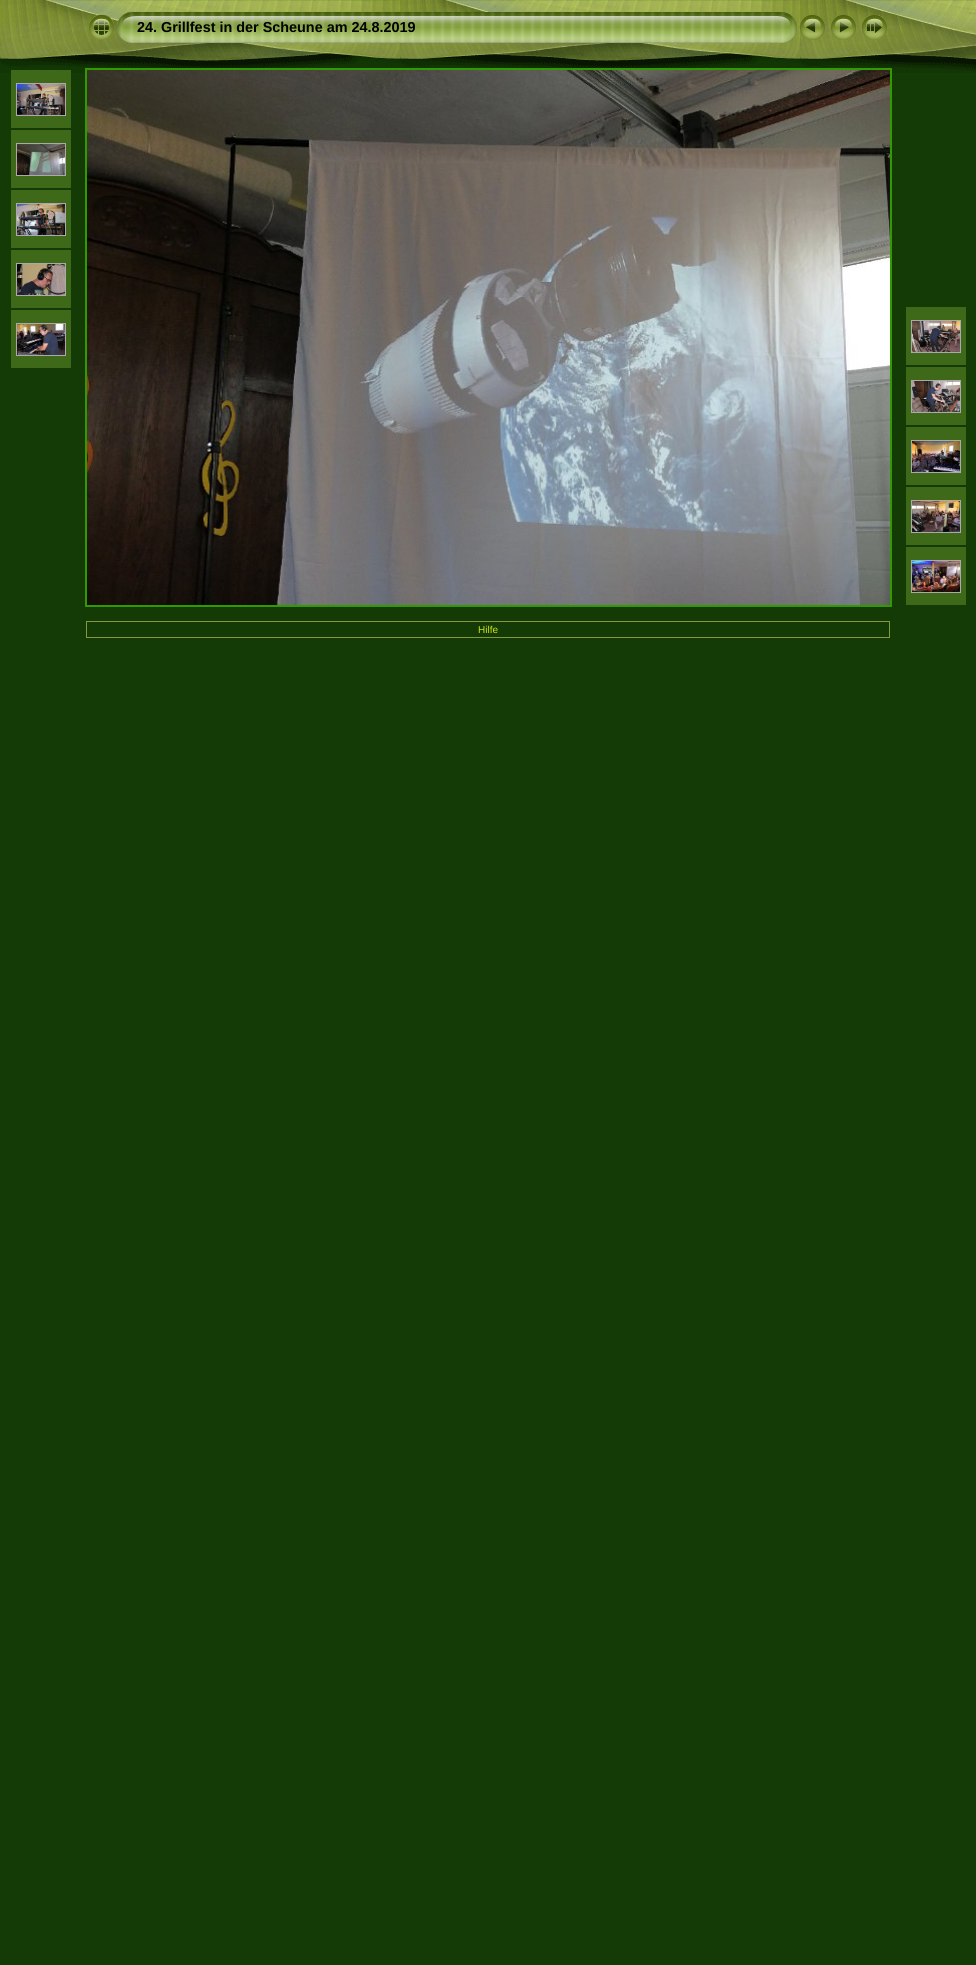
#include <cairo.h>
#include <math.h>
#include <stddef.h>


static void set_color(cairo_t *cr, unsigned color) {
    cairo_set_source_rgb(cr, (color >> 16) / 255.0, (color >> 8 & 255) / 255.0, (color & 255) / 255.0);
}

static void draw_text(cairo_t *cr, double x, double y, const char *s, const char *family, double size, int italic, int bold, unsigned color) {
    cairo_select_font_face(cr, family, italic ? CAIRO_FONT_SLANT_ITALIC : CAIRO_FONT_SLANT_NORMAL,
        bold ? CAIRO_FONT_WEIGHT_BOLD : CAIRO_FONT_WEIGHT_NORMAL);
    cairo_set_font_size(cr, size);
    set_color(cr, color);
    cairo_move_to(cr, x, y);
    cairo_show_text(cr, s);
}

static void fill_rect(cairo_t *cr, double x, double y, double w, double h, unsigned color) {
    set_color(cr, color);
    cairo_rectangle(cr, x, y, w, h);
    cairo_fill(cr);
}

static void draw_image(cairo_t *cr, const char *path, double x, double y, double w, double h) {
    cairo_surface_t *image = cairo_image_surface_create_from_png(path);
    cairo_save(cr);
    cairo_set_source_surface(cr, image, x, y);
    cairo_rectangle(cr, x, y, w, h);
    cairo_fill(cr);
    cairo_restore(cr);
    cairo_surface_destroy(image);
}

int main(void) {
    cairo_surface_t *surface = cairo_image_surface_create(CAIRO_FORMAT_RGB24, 976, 1965);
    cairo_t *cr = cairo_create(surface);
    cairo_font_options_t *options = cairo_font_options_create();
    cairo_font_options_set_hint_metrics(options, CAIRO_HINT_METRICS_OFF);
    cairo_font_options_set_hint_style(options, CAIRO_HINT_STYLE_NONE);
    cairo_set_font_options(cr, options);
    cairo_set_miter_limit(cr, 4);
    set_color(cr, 0x143B05);
    cairo_paint(cr);
    draw_image(cr, "assets/img1.png", 0, 0, 976, 73);
    draw_image(cr, "assets/img2.png", 88, 15, 26, 25);
    draw_image(cr, "assets/img3.png", 117, 12, 20, 31);
    draw_image(cr, "assets/img4.png", 137, 12, 640, 31);
    draw_text(cr, 137, 32, "24. Grillfest in der Scheune am 24.8.2019", "Liberation Sans", 14.4, 0, 1, 0x000000);
    draw_image(cr, "assets/img5.png", 777, 12, 20, 31);
    draw_image(cr, "assets/img6.png", 799, 15, 26, 25);
    draw_image(cr, "assets/img7.png", 830, 15, 26, 25);
    draw_image(cr, "assets/img8.png", 861, 15, 26, 25);
    fill_rect(cr, 11, 70, 60, 58, 0x3E6918);
    cairo_rectangle(cr, 16.5, 83.5, 49, 32);
    set_color(cr, 0xAAAAAA);
    cairo_set_line_width(cr, 1);
    cairo_stroke(cr);
    draw_image(cr, "assets/img9.png", 17, 84, 48, 31);
    fill_rect(cr, 11, 130, 60, 58, 0x3E6918);
    cairo_rectangle(cr, 16.5, 143.5, 49, 32);
    set_color(cr, 0xAAAAAA);
    cairo_stroke(cr);
    draw_image(cr, "assets/img10.png", 17, 144, 48, 31);
    fill_rect(cr, 11, 190, 60, 58, 0x3E6918);
    cairo_rectangle(cr, 16.5, 203.5, 49, 32);
    set_color(cr, 0xAAAAAA);
    cairo_stroke(cr);
    draw_image(cr, "assets/img11.png", 17, 204, 48, 31);
    fill_rect(cr, 11, 250, 60, 58, 0x3E6918);
    cairo_rectangle(cr, 16.5, 263.5, 49, 32);
    set_color(cr, 0xAAAAAA);
    cairo_stroke(cr);
    draw_image(cr, "assets/img12.png", 17, 264, 48, 31);
    fill_rect(cr, 11, 310, 60, 58, 0x3E6918);
    cairo_rectangle(cr, 16.5, 323.5, 49, 32);
    set_color(cr, 0xAAAAAA);
    cairo_stroke(cr);
    draw_image(cr, "assets/img13.png", 17, 324, 48, 31);
    cairo_rectangle(cr, 86, 69, 805, 537);
    set_color(cr, 0x339900);
    cairo_set_line_width(cr, 2);
    cairo_stroke(cr);
    draw_image(cr, "assets/img14.png", 87, 70, 803, 535);
    fill_rect(cr, 906, 307, 60, 58, 0x3E6918);
    cairo_rectangle(cr, 911.5, 320.5, 49, 32);
    set_color(cr, 0xAAAAAA);
    cairo_set_line_width(cr, 1);
    cairo_stroke(cr);
    draw_image(cr, "assets/img15.png", 912, 321, 48, 31);
    fill_rect(cr, 906, 367, 60, 58, 0x3E6918);
    cairo_rectangle(cr, 911.5, 380.5, 49, 32);
    set_color(cr, 0xAAAAAA);
    cairo_stroke(cr);
    draw_image(cr, "assets/img16.png", 912, 381, 48, 31);
    fill_rect(cr, 906, 427, 60, 58, 0x3E6918);
    cairo_rectangle(cr, 911.5, 440.5, 49, 32);
    set_color(cr, 0xAAAAAA);
    cairo_stroke(cr);
    draw_image(cr, "assets/img17.png", 912, 441, 48, 31);
    fill_rect(cr, 906, 487, 60, 58, 0x3E6918);
    cairo_rectangle(cr, 911.5, 500.5, 49, 32);
    set_color(cr, 0xAAAAAA);
    cairo_stroke(cr);
    draw_image(cr, "assets/img18.png", 912, 501, 48, 31);
    fill_rect(cr, 906, 547, 60, 58, 0x3E6918);
    cairo_rectangle(cr, 911.5, 560.5, 49, 32);
    set_color(cr, 0xAAAAAA);
    cairo_stroke(cr);
    draw_image(cr, "assets/img19.png", 912, 561, 48, 31);
    fill_rect(cr, 86, 621, 804, 1, 0x869740);
    fill_rect(cr, 889, 621, 1, 17, 0x869740);
    fill_rect(cr, 86, 637, 804, 1, 0x869740);
    fill_rect(cr, 86, 621, 1, 17, 0x869740);
    draw_text(cr, 478, 633, "Hilfe", "Liberation Sans", 10, 0, 0, 0xCCE016);
    cairo_surface_write_to_png(surface, "output.png");
    cairo_font_options_destroy(options);
    cairo_destroy(cr);
    cairo_surface_destroy(surface);
    return 0;
}
